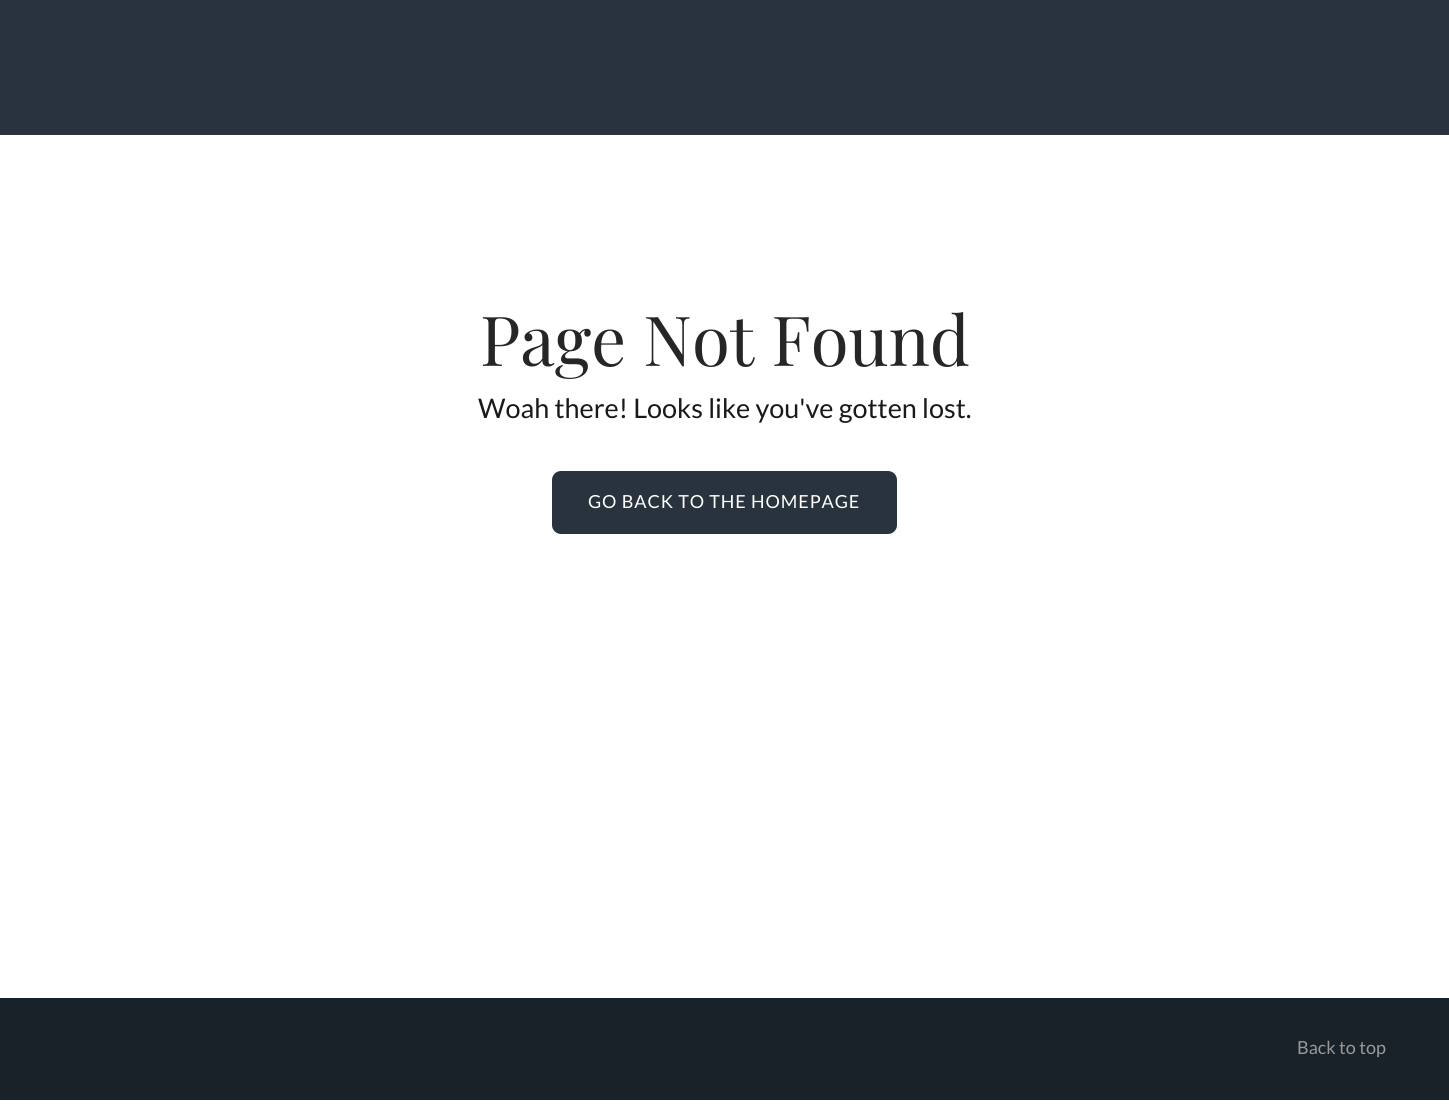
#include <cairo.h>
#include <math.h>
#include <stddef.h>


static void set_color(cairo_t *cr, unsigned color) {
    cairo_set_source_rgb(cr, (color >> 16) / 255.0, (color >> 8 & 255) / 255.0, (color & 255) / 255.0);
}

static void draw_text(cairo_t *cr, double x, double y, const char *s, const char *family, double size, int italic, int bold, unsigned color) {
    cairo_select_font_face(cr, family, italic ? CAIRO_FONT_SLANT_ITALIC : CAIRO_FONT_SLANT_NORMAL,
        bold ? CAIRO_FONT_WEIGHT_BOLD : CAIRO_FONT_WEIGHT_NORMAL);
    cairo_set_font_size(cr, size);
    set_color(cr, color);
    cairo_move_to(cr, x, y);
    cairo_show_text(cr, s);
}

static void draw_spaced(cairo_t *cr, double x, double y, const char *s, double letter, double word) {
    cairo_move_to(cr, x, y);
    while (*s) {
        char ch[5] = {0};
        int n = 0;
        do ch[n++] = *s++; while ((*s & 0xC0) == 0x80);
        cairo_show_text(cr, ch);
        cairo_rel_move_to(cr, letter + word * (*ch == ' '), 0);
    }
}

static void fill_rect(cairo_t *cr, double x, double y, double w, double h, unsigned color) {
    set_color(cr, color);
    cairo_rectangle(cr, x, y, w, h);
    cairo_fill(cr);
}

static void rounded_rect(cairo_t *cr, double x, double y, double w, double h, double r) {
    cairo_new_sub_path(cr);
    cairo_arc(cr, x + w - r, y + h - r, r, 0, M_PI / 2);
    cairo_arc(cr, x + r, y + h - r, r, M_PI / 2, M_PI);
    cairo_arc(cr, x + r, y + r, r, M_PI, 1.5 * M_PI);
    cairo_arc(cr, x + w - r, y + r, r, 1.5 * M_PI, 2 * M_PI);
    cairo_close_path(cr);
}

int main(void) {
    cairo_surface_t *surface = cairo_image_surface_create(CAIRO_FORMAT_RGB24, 1449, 1105);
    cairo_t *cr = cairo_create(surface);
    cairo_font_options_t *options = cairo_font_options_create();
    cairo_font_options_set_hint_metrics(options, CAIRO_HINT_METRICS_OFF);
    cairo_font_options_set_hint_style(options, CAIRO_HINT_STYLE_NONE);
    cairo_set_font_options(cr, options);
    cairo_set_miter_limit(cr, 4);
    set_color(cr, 0xFFFFFF);
    cairo_paint(cr);
    fill_rect(cr, 0, 0, 1449, 135, 0x29333D);
    draw_text(cr, 480, 366, "Page Not Found", "Playfair Display", 69, 0, 0, 0x262624);
    draw_text(cr, 478, 418, "Woah there! Looks like you've gotten lost.", "Lato", 27, 0, 0, 0x191919);
    set_color(cr, 0x29333D);
    rounded_rect(cr, 552, 471, 345, 63, 9);
    cairo_fill(cr);
    cairo_set_font_size(cr, 18);
    set_color(cr, 0xFFFFFF);
    draw_spaced(cr, 588, 508, "GO BACK TO THE HOMEPAGE", 0.9, 0);
    fill_rect(cr, 0, 998, 1449, 102, 0x1A2229);
    draw_text(cr, 1297, 1054, "Back to top", "Lato", 18, 0, 0, 0x999999);
    cairo_surface_write_to_png(surface, "output.png");
    cairo_font_options_destroy(options);
    cairo_destroy(cr);
    cairo_surface_destroy(surface);
    return 0;
}
